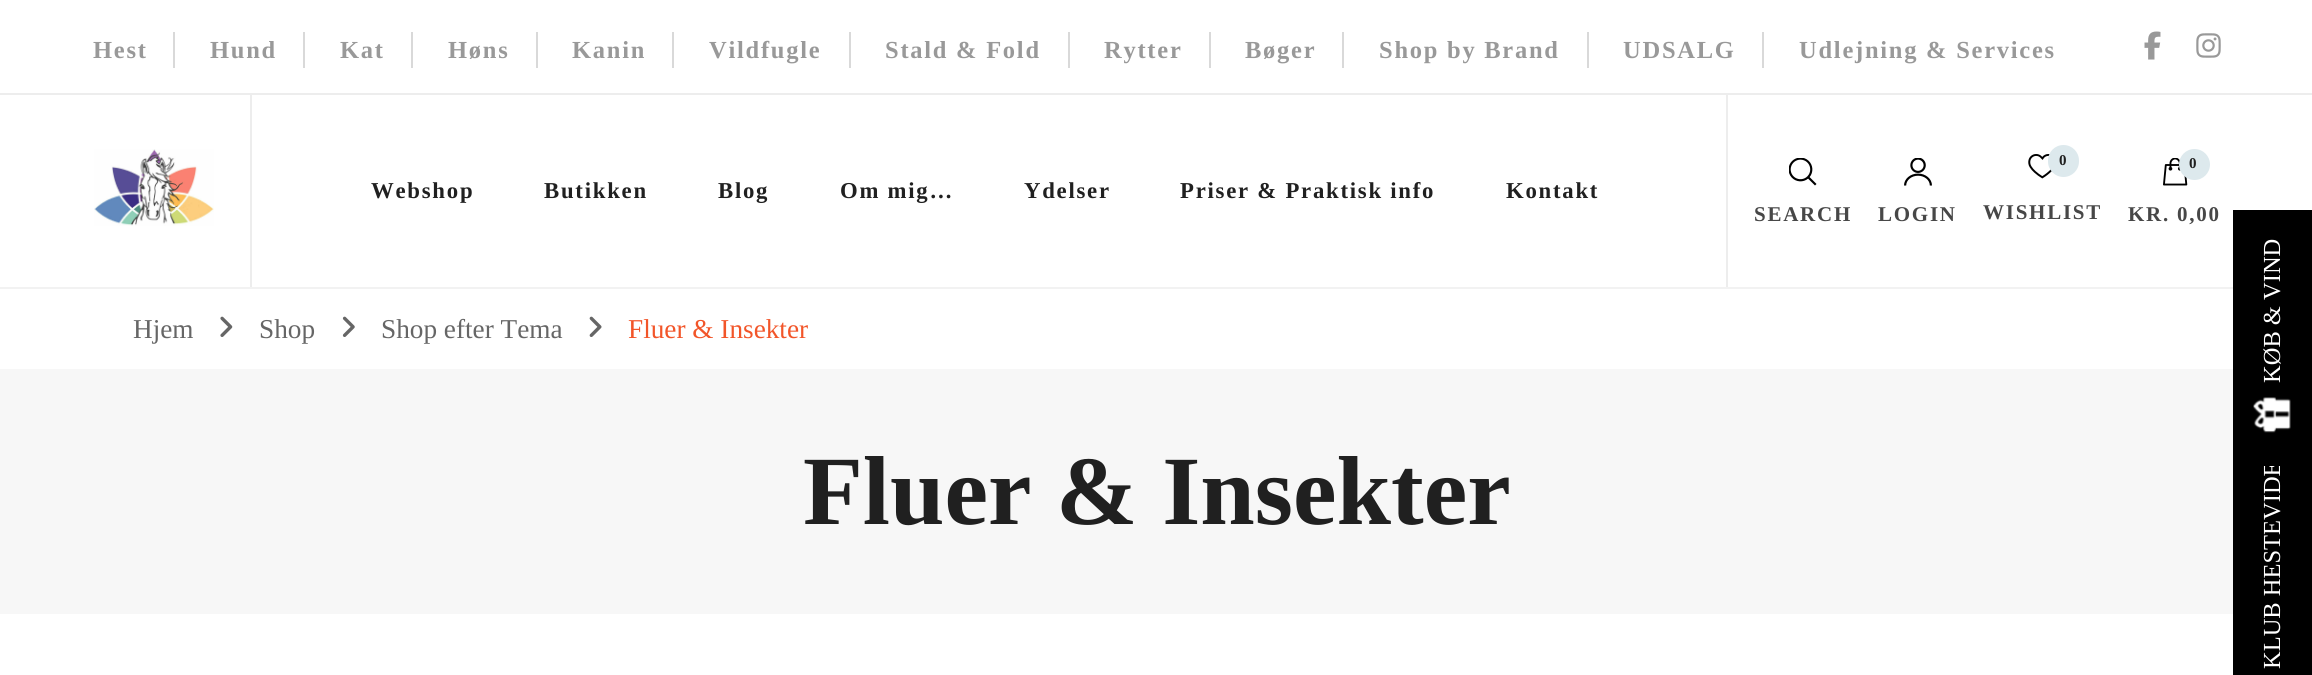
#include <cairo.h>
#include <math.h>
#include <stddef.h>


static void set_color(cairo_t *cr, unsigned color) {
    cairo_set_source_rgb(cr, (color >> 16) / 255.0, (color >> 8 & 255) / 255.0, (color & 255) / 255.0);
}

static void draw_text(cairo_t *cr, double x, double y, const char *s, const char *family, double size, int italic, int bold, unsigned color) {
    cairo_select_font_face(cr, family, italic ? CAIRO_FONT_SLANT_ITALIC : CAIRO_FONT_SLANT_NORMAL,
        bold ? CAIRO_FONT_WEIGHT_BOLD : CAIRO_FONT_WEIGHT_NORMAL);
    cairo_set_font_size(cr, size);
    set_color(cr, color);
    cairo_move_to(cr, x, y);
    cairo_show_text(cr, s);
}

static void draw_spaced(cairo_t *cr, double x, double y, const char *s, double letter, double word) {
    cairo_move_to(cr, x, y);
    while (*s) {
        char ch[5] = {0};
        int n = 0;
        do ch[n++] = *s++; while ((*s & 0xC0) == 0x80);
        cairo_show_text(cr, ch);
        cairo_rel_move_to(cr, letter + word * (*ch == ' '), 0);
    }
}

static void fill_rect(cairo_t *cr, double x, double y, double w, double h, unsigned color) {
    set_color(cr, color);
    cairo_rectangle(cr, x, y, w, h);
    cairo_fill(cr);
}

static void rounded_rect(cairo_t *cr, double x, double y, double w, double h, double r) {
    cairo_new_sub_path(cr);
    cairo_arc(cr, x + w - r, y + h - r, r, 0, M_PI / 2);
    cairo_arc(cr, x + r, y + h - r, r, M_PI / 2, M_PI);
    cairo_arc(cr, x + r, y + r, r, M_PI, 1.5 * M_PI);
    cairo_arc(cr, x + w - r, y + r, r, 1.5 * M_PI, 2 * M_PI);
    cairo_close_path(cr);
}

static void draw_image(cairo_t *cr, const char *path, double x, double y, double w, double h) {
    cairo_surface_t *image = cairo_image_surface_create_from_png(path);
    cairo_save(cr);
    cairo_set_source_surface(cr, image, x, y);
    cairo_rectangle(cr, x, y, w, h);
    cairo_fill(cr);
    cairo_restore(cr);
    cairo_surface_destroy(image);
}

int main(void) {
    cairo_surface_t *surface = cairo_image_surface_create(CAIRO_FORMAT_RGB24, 2312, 675);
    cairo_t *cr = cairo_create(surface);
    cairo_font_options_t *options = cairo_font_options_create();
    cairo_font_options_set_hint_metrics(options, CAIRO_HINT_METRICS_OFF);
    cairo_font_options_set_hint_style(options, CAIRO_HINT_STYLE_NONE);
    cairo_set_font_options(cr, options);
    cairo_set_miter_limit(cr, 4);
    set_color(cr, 0xFFFFFF);
    cairo_paint(cr);
    fill_rect(cr, 0, 93, 2312, 2, 0xEDEDED);
    fill_rect(cr, 173, 32, 2, 36, 0xD9D9D9);
    cairo_select_font_face(cr, "Liberation Serif", CAIRO_FONT_SLANT_NORMAL, CAIRO_FONT_WEIGHT_BOLD);
    cairo_set_font_size(cr, 24.5);
    set_color(cr, 0x999999);
    draw_spaced(cr, 93, 58, "Hest", 1.75, 0);
    fill_rect(cr, 303, 32, 2, 36, 0xD9D9D9);
    set_color(cr, 0x999999);
    draw_spaced(cr, 210, 58, "Hund", 1.75, 0);
    fill_rect(cr, 411, 32, 2, 36, 0xD9D9D9);
    set_color(cr, 0x999999);
    draw_spaced(cr, 340, 58, "Kat", 1.75, 0);
    fill_rect(cr, 536, 32, 2, 36, 0xD9D9D9);
    set_color(cr, 0x999999);
    draw_spaced(cr, 448, 58, "Høns", 1.75, 0);
    fill_rect(cr, 672, 32, 2, 36, 0xD9D9D9);
    set_color(cr, 0x999999);
    draw_spaced(cr, 572, 58, "Kanin", 1.75, 0);
    fill_rect(cr, 849, 32, 2, 36, 0xD9D9D9);
    set_color(cr, 0x999999);
    draw_spaced(cr, 709, 58, "Vildfugle", 1.75, 0);
    fill_rect(cr, 1068, 32, 2, 36, 0xD9D9D9);
    set_color(cr, 0x999999);
    draw_spaced(cr, 885, 58, "Stald & Fold", 1.75, 0);
    fill_rect(cr, 1209, 32, 2, 36, 0xD9D9D9);
    set_color(cr, 0x999999);
    draw_spaced(cr, 1104, 58, "Rytter", 1.75, 0);
    fill_rect(cr, 1342, 32, 2, 36, 0xD9D9D9);
    set_color(cr, 0x999999);
    draw_spaced(cr, 1245, 58, "Bøger", 1.75, 0);
    fill_rect(cr, 1587, 32, 2, 36, 0xD9D9D9);
    set_color(cr, 0x999999);
    draw_spaced(cr, 1379, 58, "Shop by Brand", 1.75, 0);
    fill_rect(cr, 1762, 32, 2, 36, 0xD9D9D9);
    set_color(cr, 0x999999);
    draw_spaced(cr, 1623, 58, "UDSALG", 1.75, 0);
    draw_spaced(cr, 1799, 58, "Udlejning & Services", 1.75, 0);
    draw_image(cr, "assets/img1.png", 2144, 31, 17, 29);
    draw_image(cr, "assets/img2.png", 2196, 33, 25, 25);
    fill_rect(cr, 0, 287, 2233, 2, 0xF2F2F2);
    fill_rect(cr, 250, 95, 2, 192, 0xEDEDED);
    draw_image(cr, "assets/img3.png", 94, 149, 120, 77);
    cairo_set_font_size(cr, 22.75);
    set_color(cr, 0x202020);
    draw_spaced(cr, 371, 198, "Webshop", 1.75, 0);
    draw_spaced(cr, 544, 198, "Butikken", 1.75, 0);
    draw_spaced(cr, 718, 198, "Blog", 1.75, 0);
    draw_spaced(cr, 840, 198, "Om mig…", 1.75, 0);
    draw_spaced(cr, 1024, 198, "Ydelser", 1.75, 0);
    draw_spaced(cr, 1180, 198, "Priser & Praktisk info", 1.75, 0);
    draw_spaced(cr, 1506, 198, "Kontakt", 1.75, 0);
    fill_rect(cr, 1726, 95, 2, 192, 0xEDEDED);
    draw_image(cr, "assets/img4.png", 1789, 158, 28, 28);
    cairo_set_font_size(cr, 21);
    set_color(cr, 0x474747);
    draw_spaced(cr, 1754, 221, "SEARCH", 1.75, 0);
    draw_image(cr, "assets/img5.png", 1904, 158, 28, 28);
    draw_spaced(cr, 1878, 221, "LOGIN", 1.75, 0);
    draw_image(cr, "assets/img6.png", 2028, 154, 24, 25);
    set_color(cr, 0xDDE9ED);
    rounded_rect(cr, 2048, 145, 31, 32, 15.5);
    cairo_fill(cr);
    cairo_set_font_size(cr, 15);
    set_color(cr, 0x202020);
    draw_spaced(cr, 2059, 165, "0", 1.75, 0);
    cairo_set_font_size(cr, 21);
    set_color(cr, 0x474747);
    draw_spaced(cr, 1983, 219, "WISHLIST", 1.75, 0);
    draw_image(cr, "assets/img7.png", 2163, 158, 25, 28);
    set_color(cr, 0xDDE9ED);
    cairo_arc(cr, 2194.5, 164.5, 15.5, 0, 2 * M_PI);
    cairo_fill(cr);
    cairo_set_font_size(cr, 15);
    set_color(cr, 0x202020);
    draw_spaced(cr, 2189, 168, "0", 1.75, 0);
    cairo_set_font_size(cr, 21);
    set_color(cr, 0x474747);
    draw_spaced(cr, 2128, 221, "KR. 0,00", 1.75, 0);
    draw_text(cr, 133, 338, "Hjem", "Liberation Serif", 27.25, 0, 0, 0x666666);
    draw_image(cr, "assets/img8.png", 220, 316, 13, 21);
    draw_text(cr, 259, 338, "Shop", "Liberation Serif", 27.25, 0, 0, 0x666666);
    draw_image(cr, "assets/img9.png", 342, 316, 13, 21);
    draw_text(cr, 381, 338, "Shop efter Tema", "Liberation Serif", 27.25, 0, 0, 0x666666);
    draw_image(cr, "assets/img10.png", 589, 316, 13, 21);
    draw_text(cr, 628, 338, "Fluer & Insekter", "Liberation Serif", 27.25, 0, 0, 0xF25529);
    fill_rect(cr, 0, 369, 2233, 245, 0xF7F7F7);
    draw_text(cr, 803, 524, "Fluer & Insekter", "Liberation Serif", 98, 0, 1, 0x202020);
    fill_rect(cr, 2233, 466, 79, 209, 0x000000);
    cairo_save(cr);
    cairo_translate(cr, 2280, 669);
    cairo_rotate(cr, -90 * M_PI / 180);
    draw_text(cr, 0, 0, "KLUB HESTEVIDEN", "Liberation Serif", 24.5, 0, 0, 0xFFFFFF);
    cairo_restore(cr);
    fill_rect(cr, 2233, 210, 79, 256, 0x000000);
    cairo_save(cr);
    cairo_translate(cr, 2280, 383);
    cairo_rotate(cr, -90 * M_PI / 180);
    draw_text(cr, 0, 0, "KØB & VIND", "Liberation Serif", 24.5, 0, 0, 0xFFFFFF);
    cairo_restore(cr);
    draw_image(cr, "assets/img11.png", 2253, 397, 38, 36);
    cairo_surface_write_to_png(surface, "output.png");
    cairo_font_options_destroy(options);
    cairo_destroy(cr);
    cairo_surface_destroy(surface);
    return 0;
}
